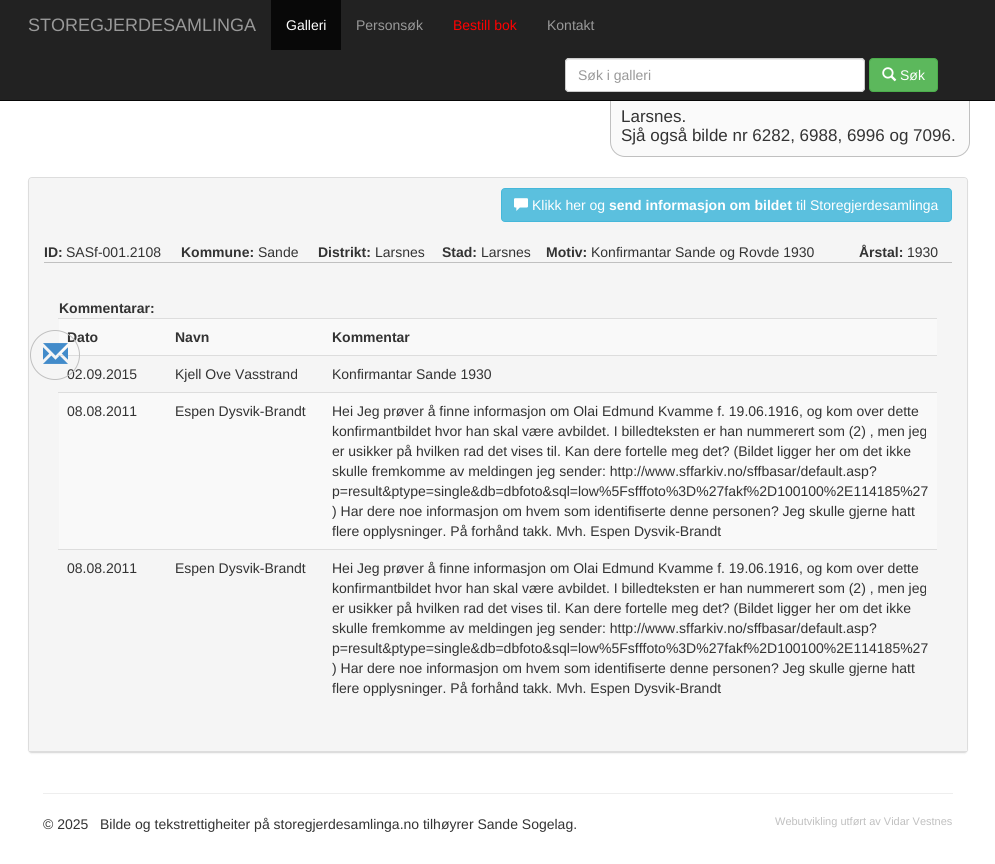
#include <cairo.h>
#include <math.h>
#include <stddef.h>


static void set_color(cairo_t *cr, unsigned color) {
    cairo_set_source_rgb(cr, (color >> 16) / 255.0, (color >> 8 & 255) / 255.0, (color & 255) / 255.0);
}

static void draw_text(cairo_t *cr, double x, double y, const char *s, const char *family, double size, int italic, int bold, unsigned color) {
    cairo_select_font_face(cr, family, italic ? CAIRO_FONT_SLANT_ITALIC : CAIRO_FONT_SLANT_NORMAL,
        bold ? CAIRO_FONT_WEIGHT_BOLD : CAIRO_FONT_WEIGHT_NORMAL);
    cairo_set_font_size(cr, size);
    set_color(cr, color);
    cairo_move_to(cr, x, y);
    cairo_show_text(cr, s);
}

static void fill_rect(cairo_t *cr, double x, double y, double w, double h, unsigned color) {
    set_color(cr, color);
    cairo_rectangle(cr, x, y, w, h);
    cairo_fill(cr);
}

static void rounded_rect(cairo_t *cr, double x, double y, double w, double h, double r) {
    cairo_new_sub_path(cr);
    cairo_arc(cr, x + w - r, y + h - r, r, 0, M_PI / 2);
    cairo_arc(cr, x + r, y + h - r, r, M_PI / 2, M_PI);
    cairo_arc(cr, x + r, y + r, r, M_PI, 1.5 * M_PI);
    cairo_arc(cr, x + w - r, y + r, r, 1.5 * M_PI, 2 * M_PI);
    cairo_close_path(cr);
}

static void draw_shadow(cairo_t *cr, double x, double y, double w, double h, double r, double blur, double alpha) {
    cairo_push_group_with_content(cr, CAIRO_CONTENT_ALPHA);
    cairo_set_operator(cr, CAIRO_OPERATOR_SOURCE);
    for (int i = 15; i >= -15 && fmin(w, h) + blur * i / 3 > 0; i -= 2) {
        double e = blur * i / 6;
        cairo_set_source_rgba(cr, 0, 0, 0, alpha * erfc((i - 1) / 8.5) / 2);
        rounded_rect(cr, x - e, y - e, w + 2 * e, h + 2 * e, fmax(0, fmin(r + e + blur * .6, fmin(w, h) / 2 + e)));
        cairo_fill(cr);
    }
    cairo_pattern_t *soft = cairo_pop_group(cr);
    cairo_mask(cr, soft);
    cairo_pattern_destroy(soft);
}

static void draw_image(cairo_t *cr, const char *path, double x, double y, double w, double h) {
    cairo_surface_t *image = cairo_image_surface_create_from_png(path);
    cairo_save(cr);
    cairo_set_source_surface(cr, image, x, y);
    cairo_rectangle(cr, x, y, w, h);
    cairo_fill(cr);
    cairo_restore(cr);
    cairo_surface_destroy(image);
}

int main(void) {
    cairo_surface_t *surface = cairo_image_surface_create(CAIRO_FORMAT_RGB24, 995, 864);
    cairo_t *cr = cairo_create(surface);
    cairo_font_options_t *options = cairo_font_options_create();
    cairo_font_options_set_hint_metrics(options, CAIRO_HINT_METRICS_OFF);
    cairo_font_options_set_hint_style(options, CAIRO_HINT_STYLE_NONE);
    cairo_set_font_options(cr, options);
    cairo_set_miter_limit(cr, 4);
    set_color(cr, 0xFFFFFF);
    cairo_paint(cr);
    set_color(cr, 0xFAFAFA);
    rounded_rect(cr, 610.5, 4.5, 359, 152, 14.5);
    cairo_fill_preserve(cr);
    set_color(cr, 0xC0C0C0);
    cairo_set_line_width(cr, 1);
    cairo_stroke(cr);
    fill_rect(cr, 0, 0, 995, 100, 0x222222);
    fill_rect(cr, 0, 100, 995, 1, 0x080808);
    draw_text(cr, 28, 31, "STOREGJERDESAMLINGA", "Liberation Sans", 18, 0, 0, 0x999999);
    fill_rect(cr, 271, 0, 70, 50, 0x080808);
    draw_text(cr, 286, 30, "Galleri", "Liberation Sans", 14, 0, 0, 0xFFFFFF);
    draw_text(cr, 356, 30, "Personsøk", "Liberation Sans", 14, 0, 0, 0x999999);
    draw_text(cr, 453, 30, "Bestill bok", "Liberation Sans", 14, 0, 0, 0xFF0000);
    draw_text(cr, 547, 30, "Kontakt", "Liberation Sans", 14, 0, 0, 0x999999);
    set_color(cr, 0xFFFFFF);
    rounded_rect(cr, 565, 58, 300, 34, 4);
    cairo_fill(cr);
    set_color(cr, 0xECECEC);
    cairo_new_path(cr);
    cairo_move_to(cr, 569, 60);
    cairo_line_to(cr, 861, 60);
    cairo_curve_to(cr, 863, 60, 864, 61, 864, 63);
    cairo_line_to(cr, 863, 60);
    cairo_line_to(cr, 862, 59);
    cairo_line_to(cr, 569, 59);
    cairo_curve_to(cr, 567, 59, 566, 61, 566, 63);
    cairo_curve_to(cr, 566, 61, 567, 60, 569, 60);
    cairo_close_path(cr);
    cairo_fill(cr);
    rounded_rect(cr, 565.5, 58.5, 299, 33, 3.5);
    set_color(cr, 0xCCCCCC);
    cairo_stroke(cr);
    draw_text(cr, 578, 80, "Søk i galleri", "Liberation Sans", 14, 0, 0, 0x999999);
    set_color(cr, 0x5CB85C);
    rounded_rect(cr, 869.5, 58.5, 68, 33, 3.5);
    cairo_fill_preserve(cr);
    set_color(cr, 0x4CAE4C);
    cairo_stroke(cr);
    draw_image(cr, "assets/img1.png", 882, 67, 15, 15);
    draw_text(cr, 900, 80, "Søk", "Liberation Sans", 14, 0, 0, 0xFFFFFF);
    set_color(cr, 0x000000);
    draw_shadow(cr, 28, 178, 940, 576, 4, 0.5, 0.05);
    rounded_rect(cr, 28.5, 177.5, 939, 575, 3.5);
    set_color(cr, 0xDDDDDD);
    cairo_stroke(cr);
    set_color(cr, 0xF5F5F5);
    cairo_new_path(cr);
    cairo_move_to(cr, 32, 178);
    cairo_line_to(cr, 964, 178);
    cairo_curve_to(cr, 965.5, 178, 967, 179.5, 967, 181);
    cairo_line_to(cr, 967, 752);
    cairo_line_to(cr, 29, 752);
    cairo_line_to(cr, 29, 181);
    cairo_curve_to(cr, 29, 179.5, 30.5, 178, 32, 178);
    cairo_close_path(cr);
    cairo_fill(cr);
    fill_rect(cr, 59, 319, 878, 36, 0xF9F9F9);
    draw_text(cr, 67, 342, "Dato", "Liberation Sans", 14, 0, 1, 0x333333);
    draw_text(cr, 67, 379, "02.09.2015", "Liberation Sans", 14, 0, 0, 0x333333);
    fill_rect(cr, 58, 355, 879, 1, 0xDDDDDD);
    cairo_new_path(cr);
    cairo_arc(cr, 55, 355, 24.5, 0, 2 * M_PI);
    set_color(cr, 0xC0C0C0);
    cairo_stroke(cr);
    draw_image(cr, "assets/img2.png", 43, 343, 25, 21);
    draw_text(cr, 621, 122, "Larsnes.", "Liberation Sans", 17, 0, 0, 0x333333);
    draw_text(cr, 621, 141, "Sjå også bilde nr 6282, 6988, 6996 og 7096.", "Liberation Sans", 17, 0, 0, 0x333333);
    fill_rect(cr, 29, 751, 938, 1, 0xDDDDDD);
    set_color(cr, 0x5BC0DE);
    rounded_rect(cr, 501.5, 188.5, 450, 33, 3.5);
    cairo_fill_preserve(cr);
    set_color(cr, 0x46B8DA);
    cairo_stroke(cr);
    draw_image(cr, "assets/img3.png", 514, 198, 14, 13);
    draw_text(cr, 532, 210, "Klikk her og", "Liberation Sans", 14, 0, 0, 0xFFFFFF);
    draw_text(cr, 609, 210, "send informasjon om bildet", "Liberation Sans", 14, 0, 1, 0xFFFFFF);
    draw_text(cr, 796, 210, "til Storegjerdesamlinga", "Liberation Sans", 14, 0, 0, 0xFFFFFF);
    draw_text(cr, 44, 257, "ID:", "Liberation Sans", 14, 0, 1, 0x333333);
    draw_text(cr, 66, 257, "SASf-001.2108", "Liberation Sans", 14, 0, 0, 0x333333);
    draw_text(cr, 181, 257, "Kommune:", "Liberation Sans", 14, 0, 1, 0x333333);
    draw_text(cr, 258, 257, "Sande", "Liberation Sans", 14, 0, 0, 0x333333);
    draw_text(cr, 318, 257, "Distrikt:", "Liberation Sans", 14, 0, 1, 0x333333);
    draw_text(cr, 375, 257, "Larsnes", "Liberation Sans", 14, 0, 0, 0x333333);
    draw_text(cr, 442, 257, "Stad:", "Liberation Sans", 14, 0, 1, 0x333333);
    draw_text(cr, 481, 257, "Larsnes", "Liberation Sans", 14, 0, 0, 0x333333);
    draw_text(cr, 546, 257, "Motiv:", "Liberation Sans", 14, 0, 1, 0x333333);
    draw_text(cr, 591, 257, "Konfirmantar Sande og Rovde 1930", "Liberation Sans", 14, 0, 0, 0x333333);
    draw_text(cr, 859, 257, "Årstal:", "Liberation Sans", 14, 0, 1, 0x333333);
    draw_text(cr, 907, 257, "1930", "Liberation Sans", 14, 0, 0, 0x333333);
    fill_rect(cr, 44, 262, 908, 1, 0xC0C0C0);
    draw_text(cr, 59, 313, "Kommentarar:", "Liberation Sans", 14, 0, 1, 0x333333);
    draw_text(cr, 175, 342, "Navn", "Liberation Sans", 14, 0, 1, 0x333333);
    fill_rect(cr, 58, 318, 879, 1, 0xDDDDDD);
    draw_text(cr, 332, 342, "Kommentar", "Liberation Sans", 14, 0, 1, 0x333333);
    draw_text(cr, 175, 379, "Kjell Ove Vasstrand", "Liberation Sans", 14, 0, 0, 0x333333);
    draw_text(cr, 332, 379, "Konfirmantar Sande 1930", "Liberation Sans", 14, 0, 0, 0x333333);
    fill_rect(cr, 59, 393, 878, 156, 0xF9F9F9);
    draw_text(cr, 67, 416, "08.08.2011", "Liberation Sans", 14, 0, 0, 0x333333);
    draw_text(cr, 175, 416, "Espen Dysvik-Brandt", "Liberation Sans", 14, 0, 0, 0x333333);
    fill_rect(cr, 58, 392, 879, 1, 0xDDDDDD);
    draw_text(cr, 332, 416, "Hei Jeg prøver å finne informasjon om Olai Edmund Kvamme f. 19.06.1916, og kom over dette", "Liberation Sans", 14, 0, 0, 0x333333);
    draw_text(cr, 332, 436, "konfirmantbildet hvor han skal være avbildet. I billedteksten er han nummerert som (2) , men jeg", "Liberation Sans", 14, 0, 0, 0x333333);
    draw_text(cr, 332, 456, "er usikker på hvilken rad det vises til. Kan dere fortelle meg det? (Bildet ligger her om det ikke", "Liberation Sans", 14, 0, 0, 0x333333);
    draw_text(cr, 332, 476, "skulle fremkomme av meldingen jeg sender: http://www.sffarkiv.no/sffbasar/default.asp?", "Liberation Sans", 14, 0, 0, 0x333333);
    draw_text(cr, 332, 496, "p=result&ptype=single&db=dbfoto&sql=low%5Fsfffoto%3D%27fakf%2D100100%2E114185%27", "Liberation Sans", 14, 0, 0, 0x333333);
    draw_text(cr, 332, 516, ") Har dere noe informasjon om hvem som identifiserte denne personen? Jeg skulle gjerne hatt", "Liberation Sans", 14, 0, 0, 0x333333);
    draw_text(cr, 332, 536, "flere opplysninger. På forhånd takk. Mvh. Espen Dysvik-Brandt", "Liberation Sans", 14, 0, 0, 0x333333);
    draw_text(cr, 67, 573, "08.08.2011", "Liberation Sans", 14, 0, 0, 0x333333);
    draw_text(cr, 175, 573, "Espen Dysvik-Brandt", "Liberation Sans", 14, 0, 0, 0x333333);
    fill_rect(cr, 58, 549, 879, 1, 0xDDDDDD);
    draw_text(cr, 332, 573, "Hei Jeg prøver å finne informasjon om Olai Edmund Kvamme f. 19.06.1916, og kom over dette", "Liberation Sans", 14, 0, 0, 0x333333);
    draw_text(cr, 332, 593, "konfirmantbildet hvor han skal være avbildet. I billedteksten er han nummerert som (2) , men jeg", "Liberation Sans", 14, 0, 0, 0x333333);
    draw_text(cr, 332, 613, "er usikker på hvilken rad det vises til. Kan dere fortelle meg det? (Bildet ligger her om det ikke", "Liberation Sans", 14, 0, 0, 0x333333);
    draw_text(cr, 332, 633, "skulle fremkomme av meldingen jeg sender: http://www.sffarkiv.no/sffbasar/default.asp?", "Liberation Sans", 14, 0, 0, 0x333333);
    draw_text(cr, 332, 653, "p=result&ptype=single&db=dbfoto&sql=low%5Fsfffoto%3D%27fakf%2D100100%2E114185%27", "Liberation Sans", 14, 0, 0, 0x333333);
    draw_text(cr, 332, 673, ") Har dere noe informasjon om hvem som identifiserte denne personen? Jeg skulle gjerne hatt", "Liberation Sans", 14, 0, 0, 0x333333);
    draw_text(cr, 332, 693, "flere opplysninger. På forhånd takk. Mvh. Espen Dysvik-Brandt", "Liberation Sans", 14, 0, 0, 0x333333);
    fill_rect(cr, 43, 793, 910, 1, 0xEEEEEE);
    draw_text(cr, 43, 829, "© 2025   Bilde og tekstrettigheiter på storegjerdesamlinga.no tilhøyrer Sande Sogelag.", "Liberation Sans", 14, 0, 0, 0x333333);
    draw_text(cr, 775, 825, "Webutvikling utført av Vidar Vestnes", "Liberation Sans", 11, 0, 0, 0xC0C0C0);
    cairo_surface_write_to_png(surface, "output.png");
    cairo_font_options_destroy(options);
    cairo_destroy(cr);
    cairo_surface_destroy(surface);
    return 0;
}
